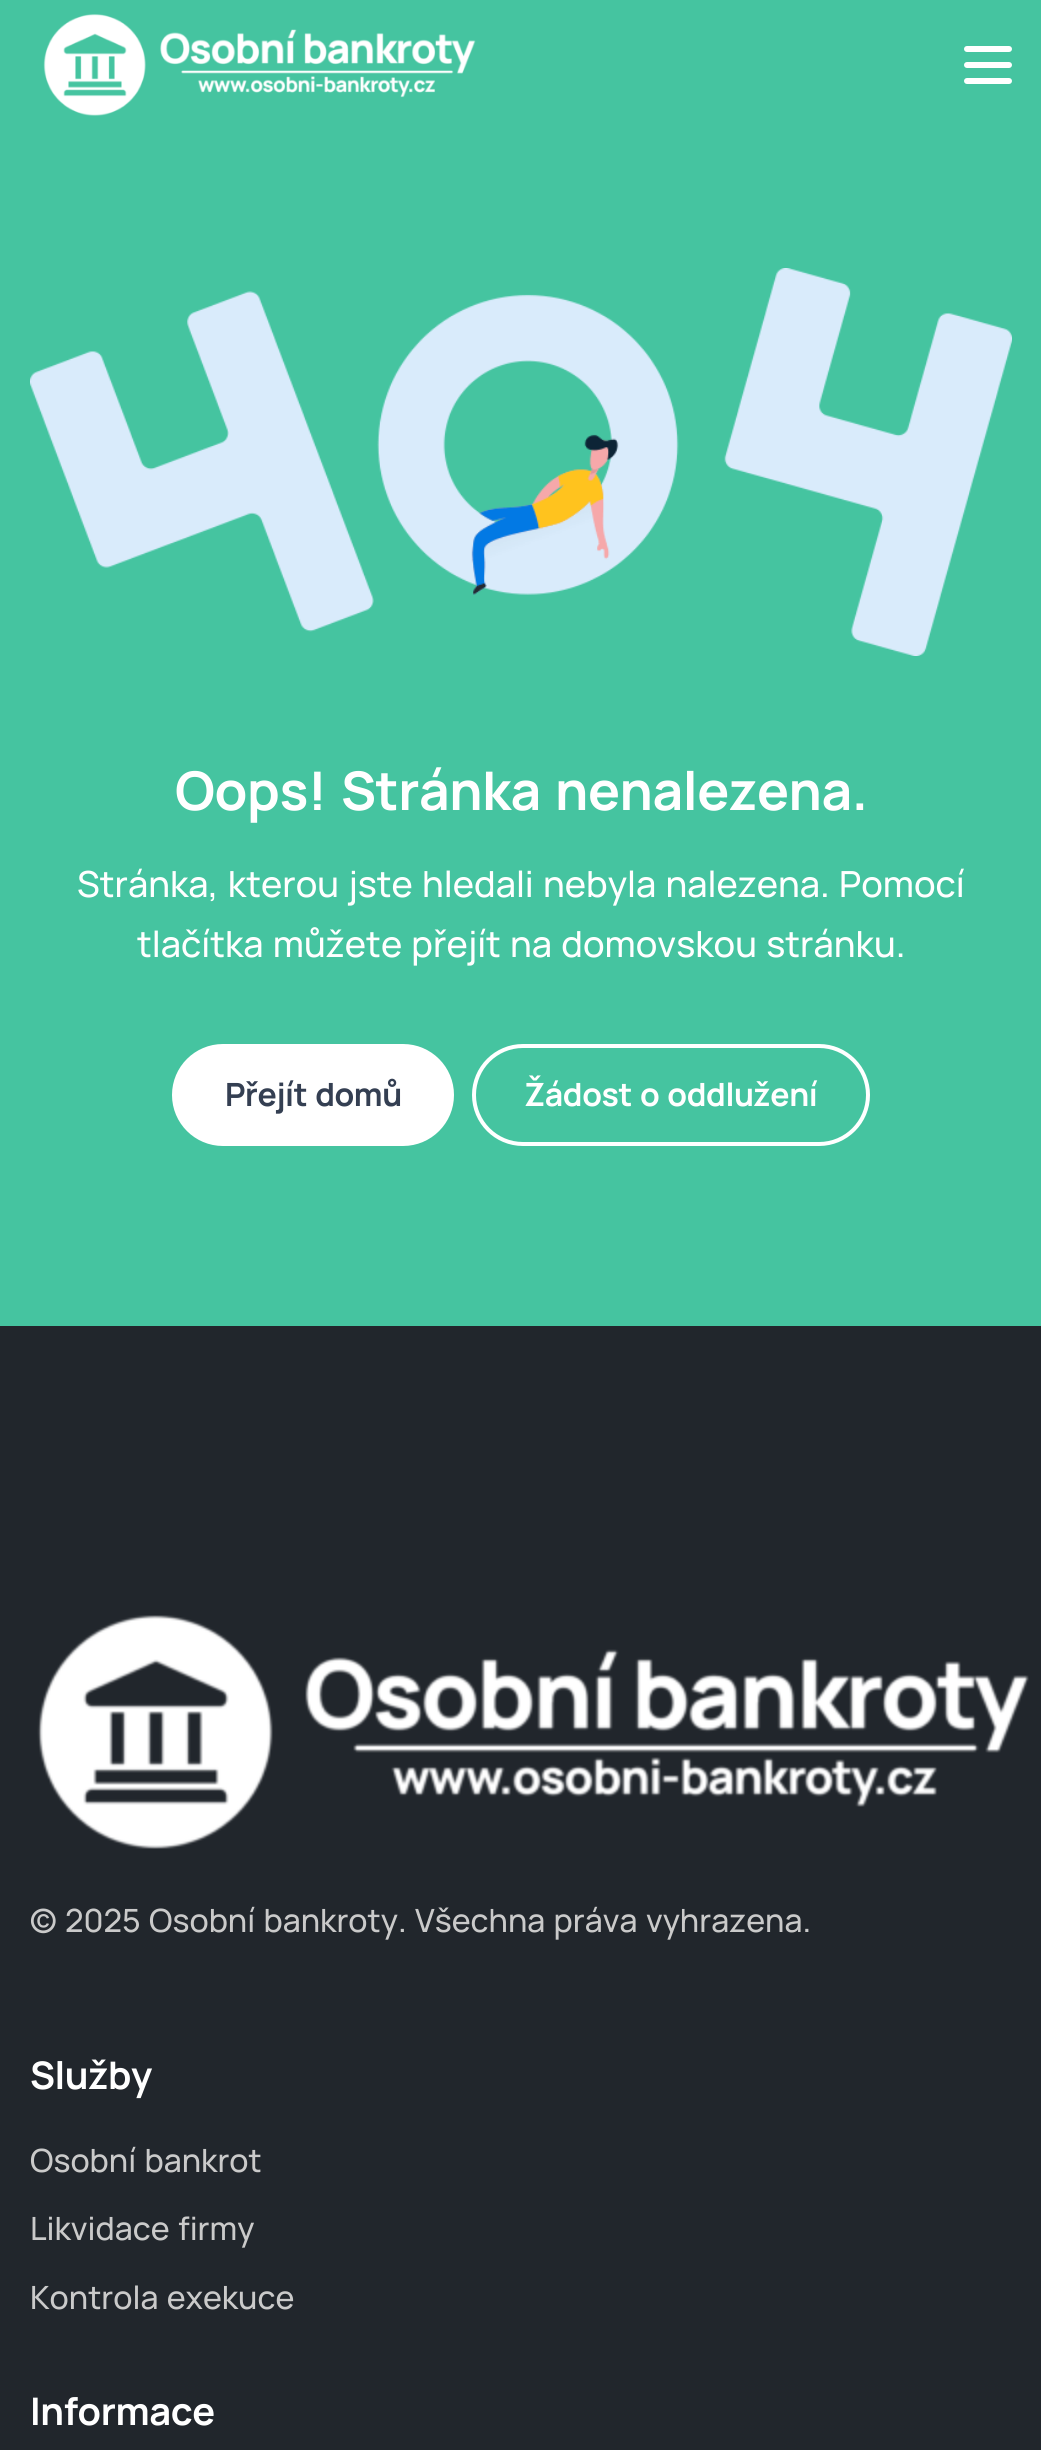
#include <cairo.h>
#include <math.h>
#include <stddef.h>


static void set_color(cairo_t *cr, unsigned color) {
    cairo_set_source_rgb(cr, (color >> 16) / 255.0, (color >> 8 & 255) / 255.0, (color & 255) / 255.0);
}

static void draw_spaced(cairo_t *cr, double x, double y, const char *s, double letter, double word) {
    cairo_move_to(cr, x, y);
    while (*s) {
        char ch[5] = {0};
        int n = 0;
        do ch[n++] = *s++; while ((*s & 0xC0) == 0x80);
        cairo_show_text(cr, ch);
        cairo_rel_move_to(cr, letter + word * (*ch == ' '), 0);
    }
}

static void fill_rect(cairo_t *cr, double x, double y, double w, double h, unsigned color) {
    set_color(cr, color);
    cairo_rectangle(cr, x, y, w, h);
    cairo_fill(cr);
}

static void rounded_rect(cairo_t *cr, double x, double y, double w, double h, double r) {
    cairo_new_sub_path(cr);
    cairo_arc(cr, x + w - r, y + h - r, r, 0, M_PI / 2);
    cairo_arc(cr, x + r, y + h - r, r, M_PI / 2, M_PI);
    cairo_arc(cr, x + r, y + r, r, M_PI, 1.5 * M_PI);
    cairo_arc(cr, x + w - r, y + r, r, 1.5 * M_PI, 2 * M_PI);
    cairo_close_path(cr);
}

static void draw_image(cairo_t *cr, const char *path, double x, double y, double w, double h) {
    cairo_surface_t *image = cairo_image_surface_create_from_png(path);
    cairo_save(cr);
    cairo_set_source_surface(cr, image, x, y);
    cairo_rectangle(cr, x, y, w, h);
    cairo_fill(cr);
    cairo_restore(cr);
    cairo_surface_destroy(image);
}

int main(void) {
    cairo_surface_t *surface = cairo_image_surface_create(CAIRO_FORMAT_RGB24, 1041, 2450);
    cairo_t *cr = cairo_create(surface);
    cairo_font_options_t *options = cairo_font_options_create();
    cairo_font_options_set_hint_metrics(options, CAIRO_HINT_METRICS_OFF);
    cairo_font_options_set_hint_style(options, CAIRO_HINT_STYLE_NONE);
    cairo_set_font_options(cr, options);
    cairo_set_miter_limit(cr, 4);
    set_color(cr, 0x45C4A0);
    cairo_paint(cr);
    draw_image(cr, "assets/img1.png", 43, 14, 433, 102);
    set_color(cr, 0xFFFFFF);
    rounded_rect(cr, 964, 46, 48, 6, 3);
    cairo_fill(cr);
    rounded_rect(cr, 964, 62, 48, 6, 3);
    cairo_fill(cr);
    rounded_rect(cr, 964, 78, 48, 6, 3);
    cairo_fill(cr);
    draw_image(cr, "assets/img2.png", 30, 268, 982, 388);
    cairo_select_font_face(cr, "Manrope", CAIRO_FONT_SLANT_NORMAL, CAIRO_FONT_WEIGHT_BOLD);
    cairo_set_font_size(cr, 53.25);
    draw_spaced(cr, 175, 810, "Oops! Stránka nenalezena.", -0.4, 4);
    cairo_select_font_face(cr, "Manrope Medium", CAIRO_FONT_SLANT_NORMAL, CAIRO_FONT_WEIGHT_NORMAL);
    cairo_set_font_size(cr, 36);
    draw_spaced(cr, 77, 897, "Stránka, kterou jste hledali nebyla nalezena. Pomocí", 0, 2);
    draw_spaced(cr, 137, 957, "tlačítka můžete přejít na domovskou stránku.", 0, 2);
    rounded_rect(cr, 174, 1046, 278, 98, 49);
    cairo_fill_preserve(cr);
    cairo_set_line_width(cr, 4);
    cairo_stroke(cr);
    cairo_select_font_face(cr, "Manrope", CAIRO_FONT_SLANT_NORMAL, CAIRO_FONT_WEIGHT_BOLD);
    cairo_set_font_size(cr, 32);
    set_color(cr, 0x343F52);
    draw_spaced(cr, 225, 1106, "Přejít domů", -0.4, 2);
    rounded_rect(cr, 474, 1046, 394, 98, 49);
    set_color(cr, 0xFFFFFF);
    cairo_stroke(cr);
    draw_spaced(cr, 524, 1106, "Žádost o oddlužení", -0.4, 2);
    fill_rect(cr, 0, 1326, 1041, 1124, 0x21262C);
    draw_image(cr, "assets/img3.png", 37, 1615, 992, 234);
    cairo_select_font_face(cr, "Manrope Medium", CAIRO_FONT_SLANT_NORMAL, CAIRO_FONT_WEIGHT_NORMAL);
    set_color(cr, 0xCACACA);
    draw_spaced(cr, 30, 1932, "© 2025 Osobní bankroty.", 0, 2);
    draw_spaced(cr, 415, 1932, "Všechna práva vyhrazena.", 0, 2);
    cairo_select_font_face(cr, "Manrope", CAIRO_FONT_SLANT_NORMAL, CAIRO_FONT_WEIGHT_BOLD);
    cairo_set_font_size(cr, 38);
    set_color(cr, 0xFFFFFF);
    draw_spaced(cr, 30, 2089, "Služby", -0.4, 0);
    cairo_select_font_face(cr, "Manrope Medium", CAIRO_FONT_SLANT_NORMAL, CAIRO_FONT_WEIGHT_NORMAL);
    cairo_set_font_size(cr, 32);
    set_color(cr, 0xCACACA);
    draw_spaced(cr, 30, 2172, "Osobní bankrot", 0, 2);
    draw_spaced(cr, 30, 2240, "Likvidace firmy", 0, 2);
    draw_spaced(cr, 30, 2309, "Kontrola exekuce", 0, 2);
    cairo_select_font_face(cr, "Manrope", CAIRO_FONT_SLANT_NORMAL, CAIRO_FONT_WEIGHT_BOLD);
    cairo_set_font_size(cr, 38);
    set_color(cr, 0xFFFFFF);
    draw_spaced(cr, 30, 2425, "Informace", -0.4, 0);
    cairo_surface_write_to_png(surface, "output.png");
    cairo_font_options_destroy(options);
    cairo_destroy(cr);
    cairo_surface_destroy(surface);
    return 0;
}
